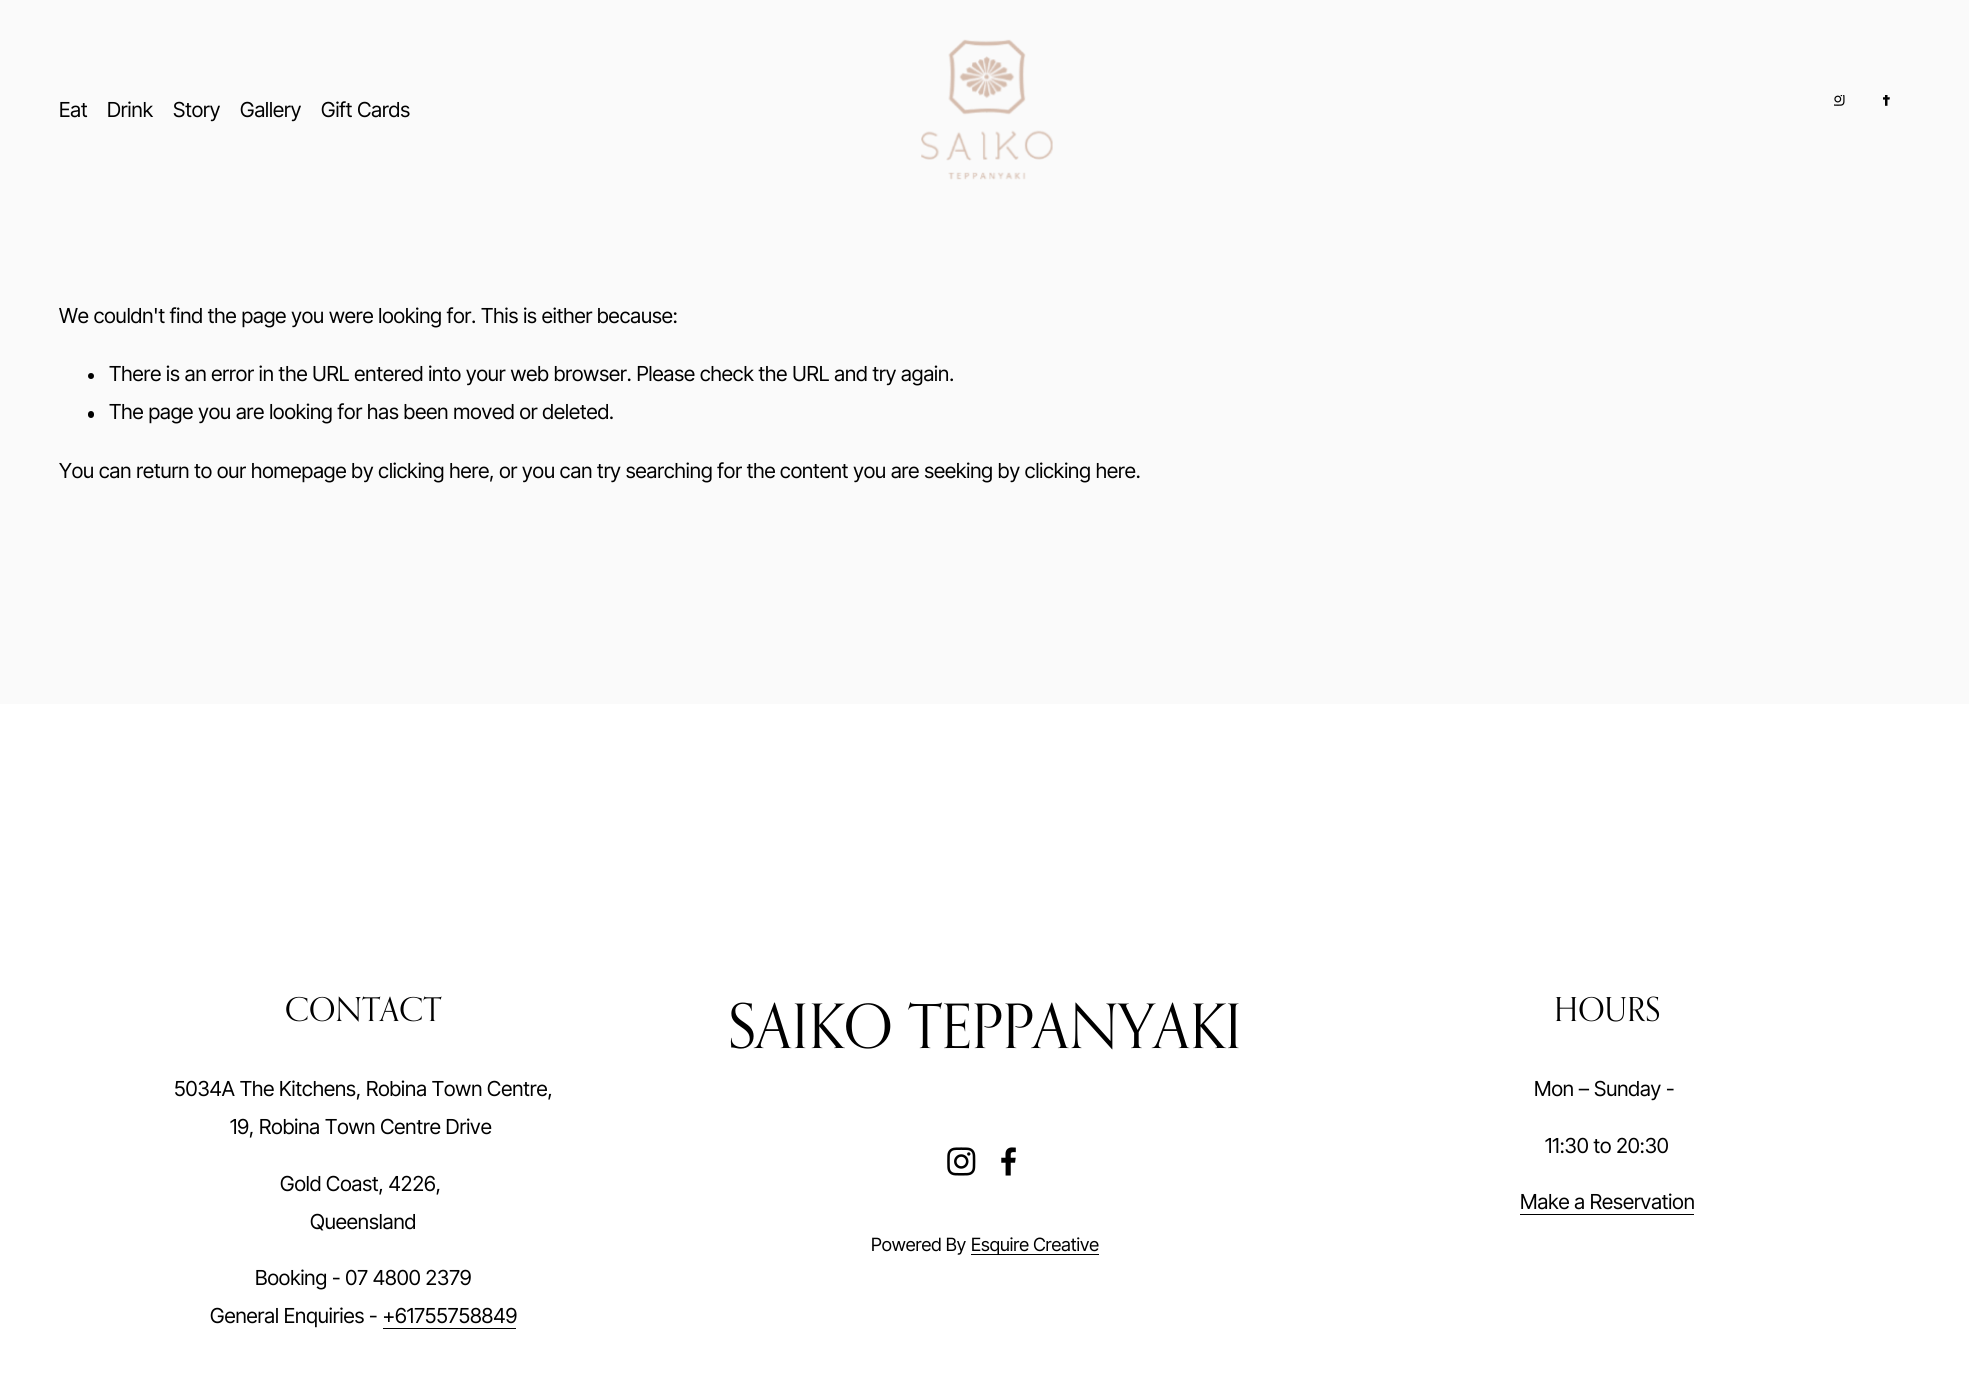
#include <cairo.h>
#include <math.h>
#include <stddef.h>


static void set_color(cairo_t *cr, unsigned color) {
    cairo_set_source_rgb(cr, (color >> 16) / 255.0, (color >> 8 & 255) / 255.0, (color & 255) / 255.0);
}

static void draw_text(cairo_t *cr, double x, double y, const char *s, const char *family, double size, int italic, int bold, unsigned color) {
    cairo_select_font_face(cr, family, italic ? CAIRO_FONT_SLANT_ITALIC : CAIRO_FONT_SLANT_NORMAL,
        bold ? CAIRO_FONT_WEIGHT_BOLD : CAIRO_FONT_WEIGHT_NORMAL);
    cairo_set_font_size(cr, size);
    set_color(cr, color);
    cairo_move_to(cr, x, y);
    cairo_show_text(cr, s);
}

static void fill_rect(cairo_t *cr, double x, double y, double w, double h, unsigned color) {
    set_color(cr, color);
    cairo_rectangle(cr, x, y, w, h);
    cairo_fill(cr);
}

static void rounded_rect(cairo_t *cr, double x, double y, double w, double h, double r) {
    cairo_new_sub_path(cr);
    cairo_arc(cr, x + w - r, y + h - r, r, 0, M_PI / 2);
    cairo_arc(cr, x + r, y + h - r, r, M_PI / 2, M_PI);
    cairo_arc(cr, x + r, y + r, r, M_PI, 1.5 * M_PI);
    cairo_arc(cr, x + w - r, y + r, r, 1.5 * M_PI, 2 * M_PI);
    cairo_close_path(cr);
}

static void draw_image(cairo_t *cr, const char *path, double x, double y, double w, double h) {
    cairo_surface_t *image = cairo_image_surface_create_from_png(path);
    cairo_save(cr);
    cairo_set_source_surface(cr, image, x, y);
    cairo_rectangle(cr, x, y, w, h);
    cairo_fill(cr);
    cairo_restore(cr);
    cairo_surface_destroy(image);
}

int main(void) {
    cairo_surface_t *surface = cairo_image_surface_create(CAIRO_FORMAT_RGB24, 1969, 1399);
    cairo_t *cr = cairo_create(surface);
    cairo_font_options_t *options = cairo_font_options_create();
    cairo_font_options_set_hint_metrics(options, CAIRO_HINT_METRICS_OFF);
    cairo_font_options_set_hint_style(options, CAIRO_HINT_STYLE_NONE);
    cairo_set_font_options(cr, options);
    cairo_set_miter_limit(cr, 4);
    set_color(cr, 0xFAFAFA);
    cairo_paint(cr);
    draw_text(cr, 59, 117, "Eat", "Inter Tight", 20.65, 0, 0, 0x000000);
    draw_text(cr, 107, 117, "Drink", "Inter Tight", 20.65, 0, 0, 0x000000);
    draw_text(cr, 173, 117, "Story", "Inter Tight", 20.65, 0, 0, 0x000000);
    draw_text(cr, 240, 117, "Gallery", "Inter Tight", 20.65, 0, 0, 0x000000);
    draw_text(cr, 321, 117, "Gift Cards", "Inter Tight", 20.65, 0, 0, 0x000000);
    draw_image(cr, "assets/img1.png", 921, 39, 132, 141);
    draw_image(cr, "assets/img2.png", 1834, 95, 11, 11);
    draw_image(cr, "assets/img3.png", 1883, 95, 7, 11);
    draw_text(cr, 59, 323, "We couldn't find the page you were looking for. This is either because:", "Inter Tight", 20.65, 0, 0, 0x000000);
    cairo_new_path(cr);
    cairo_arc(cr, 91, 376, 3, 0, 2 * M_PI);
    cairo_fill(cr);
    draw_text(cr, 109, 381, "There is an error in the URL entered into your web browser. Please check the URL and try again.", "Inter Tight", 20.65, 0, 0, 0x000000);
    rounded_rect(cr, 88, 411, 6, 7, 3);
    cairo_fill(cr);
    draw_text(cr, 109, 419, "The page you are looking for has been moved or deleted.", "Inter Tight", 20.65, 0, 0, 0x000000);
    draw_text(cr, 59, 478, "You can return to our homepage by clicking here, or you can try searching for the", "Inter Tight", 20.65, 0, 0, 0x000000);
    draw_text(cr, 780, 478, "content you are seeking by clicking here.", "Inter Tight", 20.65, 0, 0, 0x000000);
    fill_rect(cr, 0, 704, 1969, 695, 0xFFFFFF);
    draw_text(cr, 285, 1021, "CONTACT", "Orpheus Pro", 33, 0, 0, 0x000000);
    draw_text(cr, 174, 1096, "5034A The Kitchens, Robina Town Centre,", "Inter Tight", 20.65, 0, 0, 0x000000);
    draw_text(cr, 230, 1134, "19, Robina Town Centre Drive", "Inter Tight", 20.65, 0, 0, 0x000000);
    draw_text(cr, 280, 1191, "Gold Coast, 4226,", "Inter Tight", 20.65, 0, 0, 0x000000);
    draw_text(cr, 310, 1229, "Queensland", "Inter Tight", 20.65, 0, 0, 0x000000);
    draw_text(cr, 255, 1285, "Booking - 07 4800 2379", "Inter Tight", 20.65, 0, 0, 0x000000);
    draw_text(cr, 210, 1323, "General Enquiries - +61755758849", "Inter Tight", 20.65, 0, 0, 0x000000);
    fill_rect(cr, 383, 1328, 133, 1, 0x000000);
    draw_text(cr, 728, 1048, "SAIKO TEPPANYAKI", "Orpheus Pro", 61.25, 0, 0, 0x000000);
    draw_text(cr, 1554, 1021, "HOURS", "Orpheus Pro", 33, 0, 0, 0x000000);
    draw_text(cr, 1534, 1096, "Mon – Sunday -", "Inter Tight", 20.65, 0, 0, 0x000000);
    draw_text(cr, 1545, 1153, "11:30 to 20:30", "Inter Tight", 20.65, 0, 0, 0x000000);
    draw_text(cr, 1520, 1209, "Make a Reservation", "Inter Tight", 20.65, 0, 0, 0x000000);
    fill_rect(cr, 1520, 1214, 174, 1, 0x000000);
    draw_image(cr, "assets/img4.png", 947, 1147, 29, 29);
    draw_image(cr, "assets/img5.png", 1001, 1147, 15, 29);
    draw_text(cr, 871, 1251, "Powered By", "Inter Tight", 18.25, 0, 0, 0x000000);
    fill_rect(cr, 971, 1254, 128, 1, 0x000000);
    draw_text(cr, 971, 1251, "Esquire Creative", "Inter Tight", 18.25, 0, 0, 0x000000);
    cairo_surface_write_to_png(surface, "output.png");
    cairo_font_options_destroy(options);
    cairo_destroy(cr);
    cairo_surface_destroy(surface);
    return 0;
}
